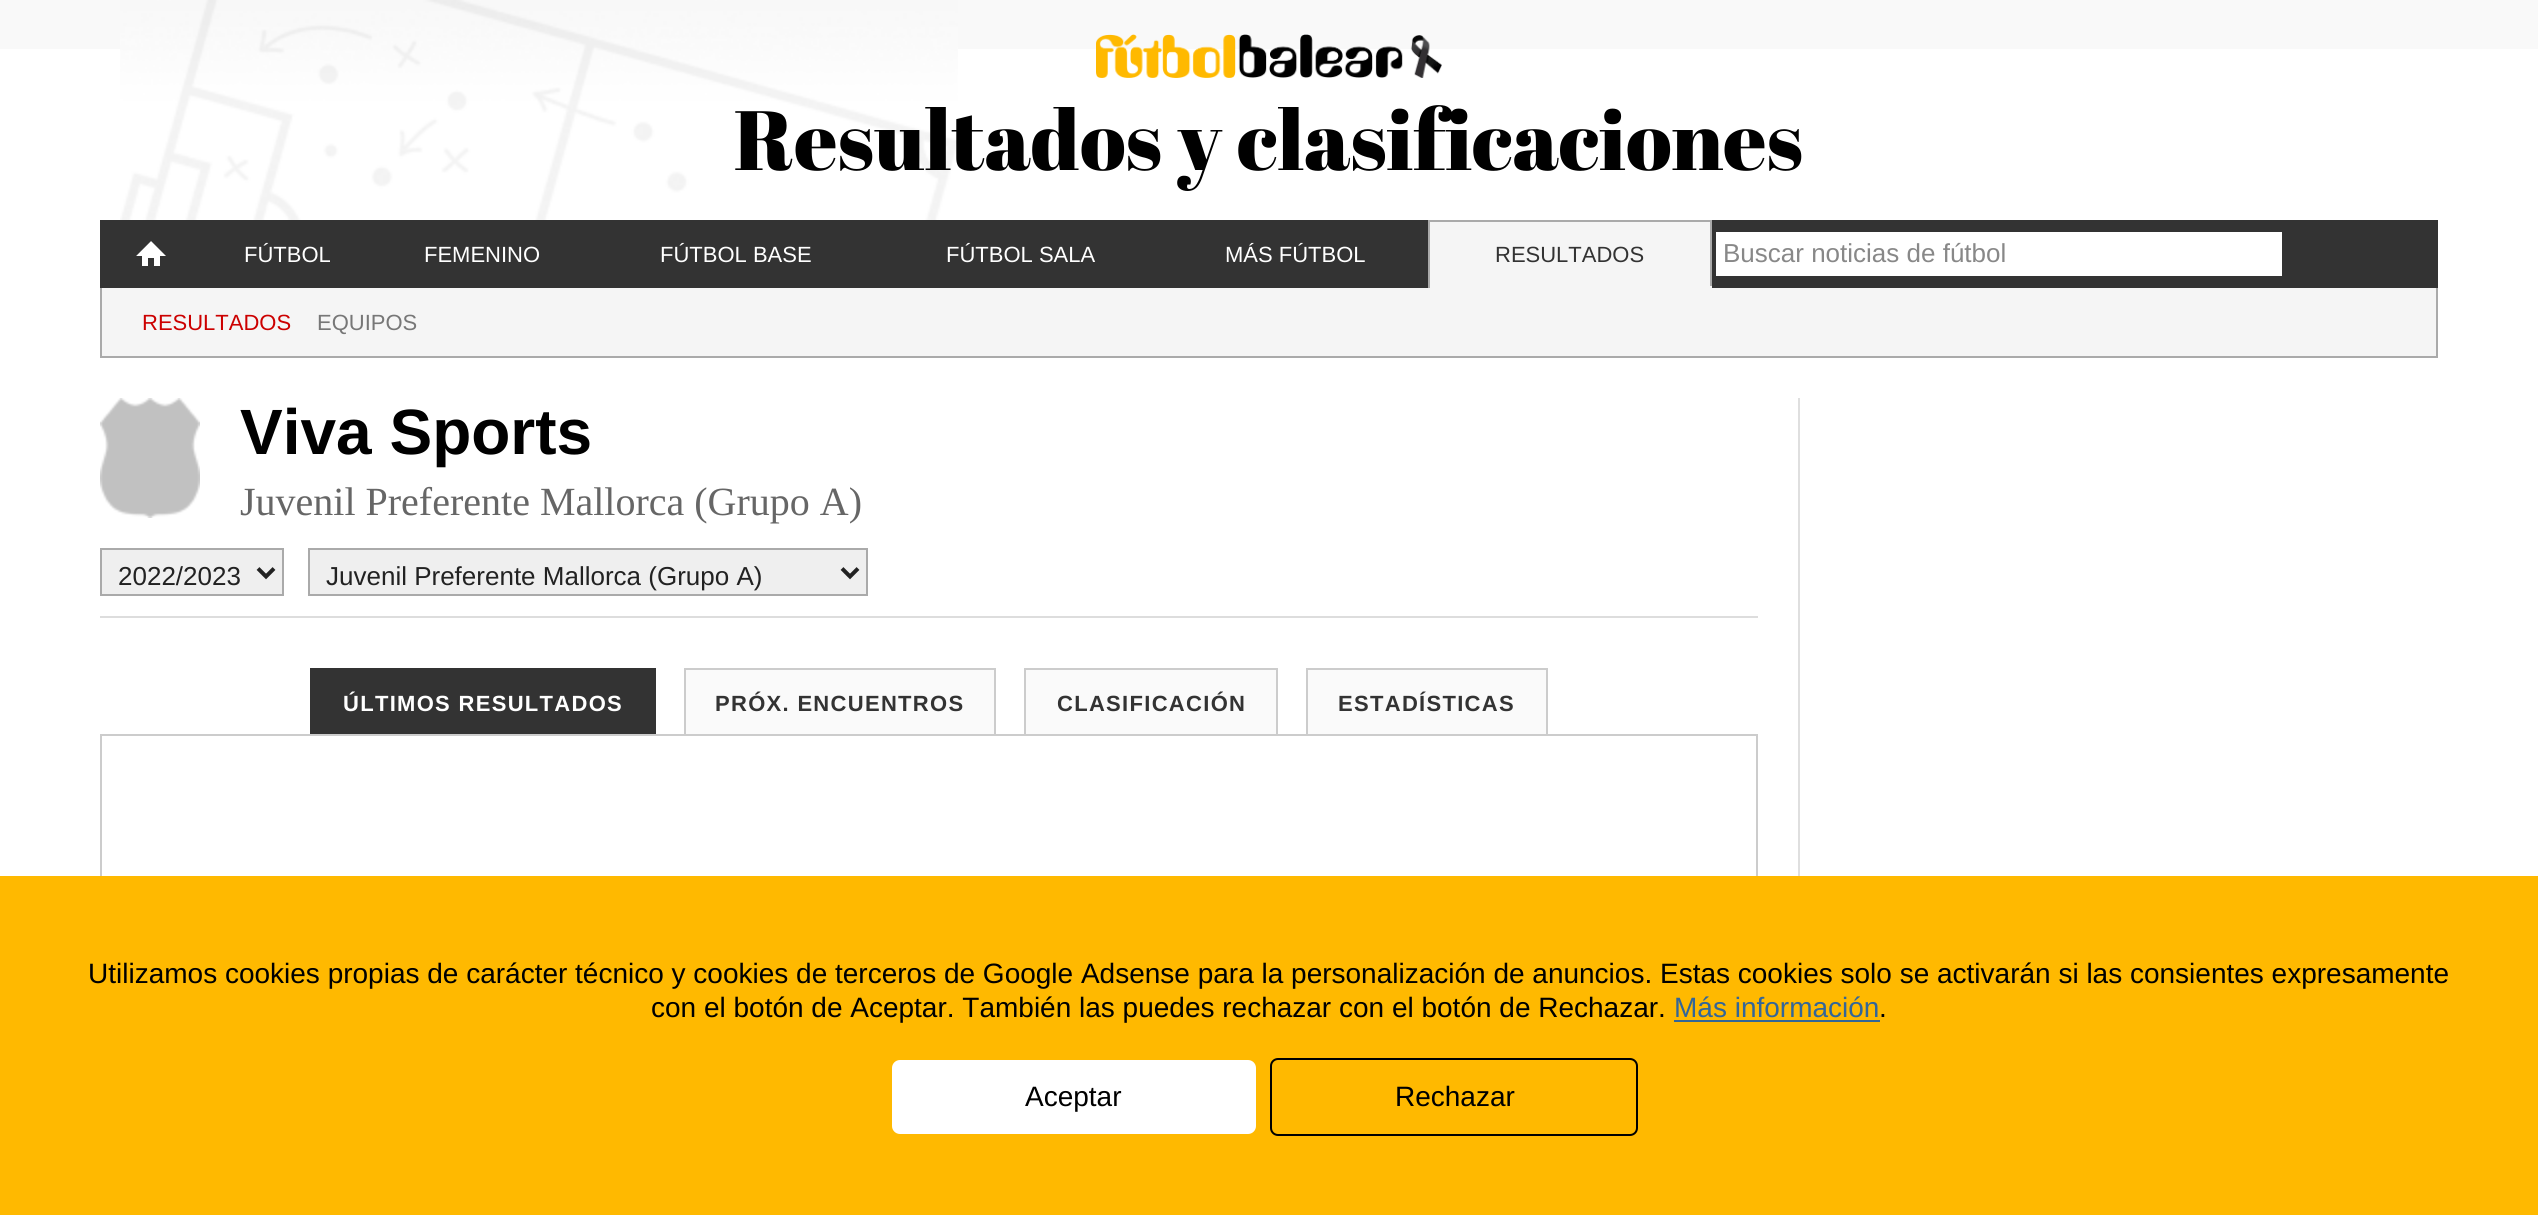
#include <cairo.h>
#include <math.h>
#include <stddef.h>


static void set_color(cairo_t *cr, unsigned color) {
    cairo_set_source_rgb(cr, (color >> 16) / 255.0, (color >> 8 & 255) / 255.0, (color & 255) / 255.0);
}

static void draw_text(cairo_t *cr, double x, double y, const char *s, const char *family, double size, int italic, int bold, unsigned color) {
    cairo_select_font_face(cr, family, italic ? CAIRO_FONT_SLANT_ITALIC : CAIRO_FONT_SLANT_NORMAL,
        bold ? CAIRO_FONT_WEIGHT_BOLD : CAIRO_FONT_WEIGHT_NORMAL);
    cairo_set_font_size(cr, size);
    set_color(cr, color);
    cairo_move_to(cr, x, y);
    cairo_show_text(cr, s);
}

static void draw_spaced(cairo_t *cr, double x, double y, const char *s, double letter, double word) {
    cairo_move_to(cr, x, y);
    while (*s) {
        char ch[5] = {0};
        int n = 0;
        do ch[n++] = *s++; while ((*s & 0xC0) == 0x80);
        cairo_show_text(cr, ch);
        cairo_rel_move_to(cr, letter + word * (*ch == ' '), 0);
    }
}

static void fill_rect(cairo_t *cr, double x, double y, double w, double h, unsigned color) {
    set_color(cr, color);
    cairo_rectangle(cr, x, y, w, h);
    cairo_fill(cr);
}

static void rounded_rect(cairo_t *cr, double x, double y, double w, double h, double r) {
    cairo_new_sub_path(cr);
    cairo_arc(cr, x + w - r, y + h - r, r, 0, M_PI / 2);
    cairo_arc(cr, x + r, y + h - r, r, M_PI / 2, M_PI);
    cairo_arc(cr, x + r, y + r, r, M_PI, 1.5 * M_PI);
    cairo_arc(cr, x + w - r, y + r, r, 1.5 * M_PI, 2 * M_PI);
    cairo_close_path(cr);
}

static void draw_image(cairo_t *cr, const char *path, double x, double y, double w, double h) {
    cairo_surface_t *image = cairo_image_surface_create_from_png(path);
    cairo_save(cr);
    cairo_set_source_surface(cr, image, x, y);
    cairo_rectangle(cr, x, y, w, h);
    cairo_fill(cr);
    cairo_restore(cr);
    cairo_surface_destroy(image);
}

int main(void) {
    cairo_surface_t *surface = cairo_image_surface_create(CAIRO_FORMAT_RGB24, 2538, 1215);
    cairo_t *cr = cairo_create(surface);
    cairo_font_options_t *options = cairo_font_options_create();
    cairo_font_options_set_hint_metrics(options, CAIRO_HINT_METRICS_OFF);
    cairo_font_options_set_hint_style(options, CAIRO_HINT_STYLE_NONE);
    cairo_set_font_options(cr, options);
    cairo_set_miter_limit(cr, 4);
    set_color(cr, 0xFFFFFF);
    cairo_paint(cr);
    fill_rect(cr, 0, 0, 2538, 49, 0xF9F9F9);
    draw_image(cr, "assets/img1.png", 120, 0, 838, 220);
    draw_image(cr, "assets/img2.png", 1096, 34, 346, 44);
    draw_text(cr, 734, 170, "Resultados y clasificaciones", "Abril Fatface", 84, 0, 0, 0x000000);
    fill_rect(cr, 100, 220, 2338, 68, 0x333333);
    draw_image(cr, "assets/img3.png", 136, 241, 30, 25);
    draw_text(cr, 244, 262, "FÚTBOL", "Liberation Sans", 22, 0, 0, 0xFFFFFF);
    draw_text(cr, 424, 262, "FEMENINO", "Liberation Sans", 22, 0, 0, 0xFFFFFF);
    draw_text(cr, 660, 262, "FÚTBOL BASE", "Liberation Sans", 22, 0, 0, 0xFFFFFF);
    draw_text(cr, 946, 262, "FÚTBOL SALA", "Liberation Sans", 22, 0, 0, 0xFFFFFF);
    draw_text(cr, 1225, 262, "MÁS FÚTBOL", "Liberation Sans", 22, 0, 0, 0xFFFFFF);
    fill_rect(cr, 1430, 222, 280, 64, 0xF5F5F5);
    fill_rect(cr, 1428, 220, 284, 2, 0xAAAAAA);
    fill_rect(cr, 1710, 220, 2, 68, 0xAAAAAA);
    fill_rect(cr, 1428, 286, 284, 2, 0xF5F5F5);
    fill_rect(cr, 1428, 220, 2, 68, 0xAAAAAA);
    draw_text(cr, 1495, 262, "RESULTADOS", "Liberation Sans", 22, 0, 0, 0x333333);
    fill_rect(cr, 1716, 232, 566, 44, 0xFFFFFF);
    draw_text(cr, 1723, 262, "Buscar noticias de fútbol", "Liberation Sans", 26, 0, 0, 0x888888);
    fill_rect(cr, 102, 288, 2334, 68, 0xF5F5F5);
    fill_rect(cr, 2436, 288, 2, 70, 0xAAAAAA);
    fill_rect(cr, 100, 356, 2338, 2, 0xAAAAAA);
    fill_rect(cr, 100, 288, 2, 70, 0xAAAAAA);
    draw_text(cr, 142, 330, "RESULTADOS", "Liberation Sans", 22, 0, 0, 0xCC0000);
    draw_text(cr, 317, 330, "EQUIPOS", "Liberation Sans", 22, 0, 0, 0x777777);
    fill_rect(cr, 100, 616, 1658, 2, 0xDDDDDD);
    draw_image(cr, "assets/img4.png", 100, 398, 100, 120);
    draw_text(cr, 240, 454, "Viva Sports", "Liberation Sans", 64, 0, 1, 0x000000);
    draw_text(cr, 240, 515, "Juvenil Preferente Mallorca (Grupo A)", "Liberation Serif", 40, 0, 0, 0x666666);
    set_color(cr, 0xEFEFEF);
    cairo_rectangle(cr, 101, 549, 182, 46);
    cairo_fill_preserve(cr);
    set_color(cr, 0xAAAAAA);
    cairo_stroke(cr);
    cairo_new_path(cr);
    cairo_move_to(cr, 258, 568.5);
    cairo_line_to(cr, 266, 576.5);
    cairo_line_to(cr, 274, 568.5);
    set_color(cr, 0x222222);
    cairo_set_line_width(cr, 4);
    cairo_stroke(cr);
    draw_text(cr, 118, 585, "2022/2023", "Liberation Sans", 26, 0, 0, 0x222222);
    set_color(cr, 0xEFEFEF);
    cairo_rectangle(cr, 309, 549, 558, 46);
    cairo_fill_preserve(cr);
    set_color(cr, 0xAAAAAA);
    cairo_set_line_width(cr, 2);
    cairo_stroke(cr);
    cairo_new_path(cr);
    cairo_move_to(cr, 842, 568.5);
    cairo_line_to(cr, 850, 576.5);
    cairo_line_to(cr, 858, 568.5);
    set_color(cr, 0x222222);
    cairo_set_line_width(cr, 4);
    cairo_stroke(cr);
    draw_text(cr, 326, 585, "Juvenil Preferente Mallorca (Grupo A)", "Liberation Sans", 26, 0, 0, 0x222222);
    fill_rect(cr, 312, 670, 342, 64, 0x333333);
    fill_rect(cr, 310, 668, 346, 2, 0x333333);
    fill_rect(cr, 654, 668, 2, 66, 0x333333);
    fill_rect(cr, 310, 668, 2, 66, 0x333333);
    cairo_select_font_face(cr, "Liberation Sans", CAIRO_FONT_SLANT_NORMAL, CAIRO_FONT_WEIGHT_BOLD);
    cairo_set_font_size(cr, 22);
    set_color(cr, 0xFFFFFF);
    draw_spaced(cr, 343, 711, "ÚLTIMOS RESULTADOS", 1.3, 0);
    fill_rect(cr, 686, 670, 308, 64, 0xFAFAFA);
    fill_rect(cr, 684, 668, 312, 2, 0xCCCCCC);
    fill_rect(cr, 994, 668, 2, 66, 0xCCCCCC);
    fill_rect(cr, 684, 668, 2, 66, 0xCCCCCC);
    set_color(cr, 0x333333);
    draw_spaced(cr, 715, 711, "PRÓX. ENCUENTROS", 1.3, 0);
    fill_rect(cr, 1026, 670, 250, 64, 0xFAFAFA);
    fill_rect(cr, 1024, 668, 254, 2, 0xCCCCCC);
    fill_rect(cr, 1276, 668, 2, 66, 0xCCCCCC);
    fill_rect(cr, 1024, 668, 2, 66, 0xCCCCCC);
    set_color(cr, 0x333333);
    draw_spaced(cr, 1057, 711, "CLASIFICACIÓN", 1.3, 0);
    fill_rect(cr, 1308, 670, 238, 64, 0xFAFAFA);
    fill_rect(cr, 1306, 668, 242, 2, 0xCCCCCC);
    fill_rect(cr, 1546, 668, 2, 66, 0xCCCCCC);
    fill_rect(cr, 1306, 668, 2, 66, 0xCCCCCC);
    set_color(cr, 0x333333);
    draw_spaced(cr, 1338, 711, "ESTADÍSTICAS", 1.3, 0);
    cairo_rectangle(cr, 101, 735, 1656, 438);
    set_color(cr, 0xCCCCCC);
    cairo_set_line_width(cr, 2);
    cairo_stroke(cr);
    fill_rect(cr, 1798, 398, 2, 478, 0xDFDFDF);
    fill_rect(cr, 0, 876, 2538, 339, 0xFFB900);
    draw_text(cr, 88, 983, "Utilizamos cookies propias de carácter técnico y cookies de terceros de Google Adsense para la personalización de anuncios. Estas cookies solo se activarán si las consientes expresamente", "Liberation Sans", 28, 0, 0, 0x000000);
    draw_text(cr, 651, 1017, "con el botón de Aceptar. También las puedes rechazar con el botón de Rechazar.", "Liberation Sans", 28, 0, 0, 0x000000);
    draw_text(cr, 1674, 1017, "Más información", "Liberation Sans", 28, 0, 0, 0x336699);
    fill_rect(cr, 1674, 1020, 206, 2, 0x336699);
    draw_text(cr, 1879, 1017, ".", "Liberation Sans", 28, 0, 0, 0x000000);
    set_color(cr, 0xFFFFFF);
    rounded_rect(cr, 892, 1060, 364, 74, 8);
    cairo_fill(cr);
    draw_text(cr, 1025, 1106, "Aceptar", "Liberation Sans", 28, 0, 0, 0x000000);
    rounded_rect(cr, 1271, 1059, 366, 76, 7);
    cairo_stroke(cr);
    draw_text(cr, 1395, 1106, "Rechazar", "Liberation Sans", 28, 0, 0, 0x000000);
    cairo_surface_write_to_png(surface, "output.png");
    cairo_font_options_destroy(options);
    cairo_destroy(cr);
    cairo_surface_destroy(surface);
    return 0;
}
